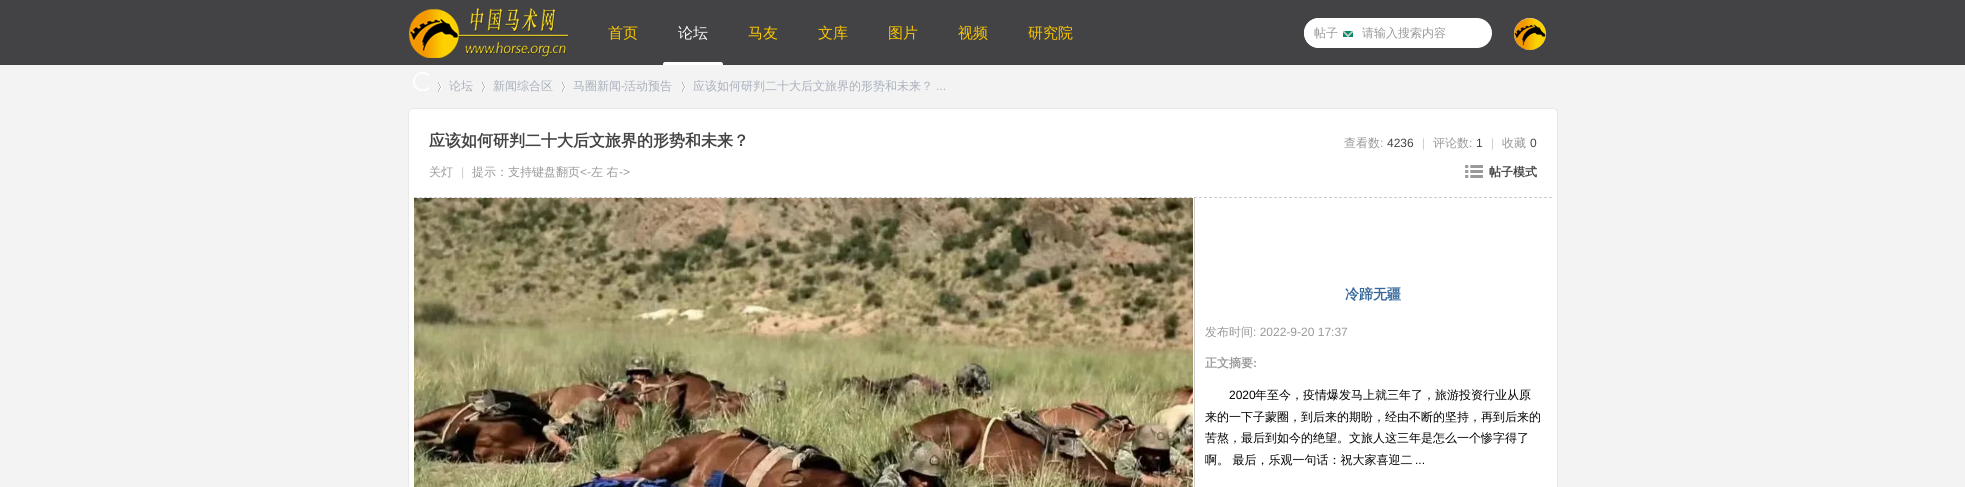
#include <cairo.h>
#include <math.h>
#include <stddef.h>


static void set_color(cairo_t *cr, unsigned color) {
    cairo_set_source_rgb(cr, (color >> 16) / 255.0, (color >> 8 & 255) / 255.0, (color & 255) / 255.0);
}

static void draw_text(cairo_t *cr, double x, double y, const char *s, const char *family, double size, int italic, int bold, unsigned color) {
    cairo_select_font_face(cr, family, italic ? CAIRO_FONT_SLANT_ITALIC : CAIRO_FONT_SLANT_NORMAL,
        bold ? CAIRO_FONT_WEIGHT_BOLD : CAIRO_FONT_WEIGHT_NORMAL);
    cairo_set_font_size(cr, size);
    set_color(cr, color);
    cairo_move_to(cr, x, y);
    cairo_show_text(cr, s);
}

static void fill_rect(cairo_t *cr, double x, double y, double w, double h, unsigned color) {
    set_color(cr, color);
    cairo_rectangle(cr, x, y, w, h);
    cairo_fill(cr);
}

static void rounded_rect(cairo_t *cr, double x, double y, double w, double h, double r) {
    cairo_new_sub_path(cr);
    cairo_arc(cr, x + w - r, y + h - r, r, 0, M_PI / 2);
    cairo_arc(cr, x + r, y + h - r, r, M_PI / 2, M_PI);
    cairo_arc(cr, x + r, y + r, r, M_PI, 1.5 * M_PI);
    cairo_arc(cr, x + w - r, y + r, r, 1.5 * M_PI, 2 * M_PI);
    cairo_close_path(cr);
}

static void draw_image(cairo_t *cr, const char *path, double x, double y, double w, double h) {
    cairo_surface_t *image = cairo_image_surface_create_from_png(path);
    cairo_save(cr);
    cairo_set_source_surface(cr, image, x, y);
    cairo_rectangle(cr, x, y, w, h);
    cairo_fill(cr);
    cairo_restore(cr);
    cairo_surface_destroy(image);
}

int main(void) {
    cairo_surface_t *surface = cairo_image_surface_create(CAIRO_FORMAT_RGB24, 1965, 487);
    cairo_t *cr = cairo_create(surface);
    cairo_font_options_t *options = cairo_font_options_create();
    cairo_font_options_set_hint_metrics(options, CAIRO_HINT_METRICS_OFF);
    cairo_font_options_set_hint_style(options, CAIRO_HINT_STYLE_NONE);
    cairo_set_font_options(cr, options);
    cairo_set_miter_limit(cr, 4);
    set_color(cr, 0xF3F3F3);
    cairo_paint(cr);
    fill_rect(cr, 0, 0, 1965, 65, 0x434345);
    draw_image(cr, "assets/img1.png", 409, 8, 159, 50);
    draw_text(cr, 608, 38, "首页", "WenQuanYi Zen Hei Medium", 15, 0, 0, 0xFBC700);
    draw_text(cr, 678, 38, "论坛", "WenQuanYi Zen Hei Medium", 15, 0, 0, 0xFFFFFF);
    cairo_new_path(cr);
    cairo_move_to(cr, 665, 62);
    cairo_line_to(cr, 721, 62);
    cairo_curve_to(cr, 722, 62, 723, 63, 723, 64);
    cairo_line_to(cr, 723, 65);
    cairo_line_to(cr, 663, 65);
    cairo_line_to(cr, 663, 64);
    cairo_curve_to(cr, 663, 63, 664, 62, 665, 62);
    cairo_close_path(cr);
    cairo_fill(cr);
    draw_text(cr, 748, 38, "马友", "WenQuanYi Zen Hei Medium", 15, 0, 0, 0xFBC700);
    draw_text(cr, 818, 38, "文库", "WenQuanYi Zen Hei Medium", 15, 0, 0, 0xFBC700);
    draw_text(cr, 888, 38, "图片", "WenQuanYi Zen Hei Medium", 15, 0, 0, 0xFBC700);
    draw_text(cr, 958, 38, "视频", "WenQuanYi Zen Hei Medium", 15, 0, 0, 0xFBC700);
    draw_text(cr, 1028, 38, "研究院", "WenQuanYi Zen Hei Medium", 15, 0, 0, 0xFBC700);
    set_color(cr, 0xFFFFFF);
    rounded_rect(cr, 1304, 18, 188, 30, 15);
    cairo_fill(cr);
    cairo_new_path(cr);
    cairo_move_to(cr, 1319, 18);
    cairo_line_to(cr, 1362, 18);
    cairo_line_to(cr, 1362, 48);
    cairo_line_to(cr, 1319, 48);
    cairo_curve_to(cr, 1310.5, 48, 1304, 41.5, 1304, 33);
    cairo_curve_to(cr, 1304, 24.5, 1310.5, 18, 1319, 18);
    cairo_close_path(cr);
    cairo_fill(cr);
    draw_image(cr, "assets/img2.png", 1343, 31, 10, 6);
    draw_text(cr, 1314, 37, "帖子", "WenQuanYi Zen Hei Medium", 12, 0, 0, 0x999999);
    draw_text(cr, 1362, 37, "请输入搜索内容", "WenQuanYi Zen Hei Medium", 12, 0, 0, 0x999999);
    draw_image(cr, "assets/img3.png", 1514, 18, 32, 32);
    draw_image(cr, "assets/img4.png", 413, 72, 16, 19);
    draw_image(cr, "assets/img5.png", 438, 82, 4, 10);
    draw_text(cr, 449, 90, "论坛", "WenQuanYi Zen Hei Medium", 12, 0, 0, 0xA8AFBB);
    draw_image(cr, "assets/img5.png", 482, 82, 4, 10);
    draw_text(cr, 493, 90, "新闻综合区", "WenQuanYi Zen Hei Medium", 12, 0, 0, 0xA8AFBB);
    draw_image(cr, "assets/img5.png", 562, 82, 4, 10);
    draw_text(cr, 573, 90, "马圈新闻", "WenQuanYi Zen Hei Medium", 12, 0, 0, 0xA8AFBB);
    draw_text(cr, 621, 90, "-", "Liberation Sans", 12, 0, 0, 0xA8AFBB);
    draw_text(cr, 624, 90, "活动预告", "WenQuanYi Zen Hei Medium", 12, 0, 0, 0xA8AFBB);
    draw_image(cr, "assets/img5.png", 682, 82, 4, 10);
    draw_text(cr, 693, 90, "应该如何研判二十大后文旅界的形势和未来？", "WenQuanYi Zen Hei Medium", 12, 0, 0, 0xA8AFBB);
    draw_text(cr, 936, 90, "...", "Liberation Sans", 12, 0, 0, 0xA8AFBB);
    set_color(cr, 0xFFFFFF);
    rounded_rect(cr, 408.5, 108.5, 1149, 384, 4.5);
    cairo_fill_preserve(cr);
    set_color(cr, 0xE8E8E8);
    cairo_set_line_width(cr, 1);
    cairo_stroke(cr);
    cairo_new_path(cr);
    cairo_move_to(cr, 414, 197.5);
    cairo_line_to(cr, 1552, 197.5);
    set_color(cr, 0xCDCDCD);
    cairo_set_dash(cr, (double[]){3, 2}, 2, 0);
    cairo_stroke(cr);
    draw_text(cr, 429, 146, "应该如何研判二十大后文旅界的形势和未来？", "WenQuanYi Zen Hei", 16, 0, 1, 0x444444);
    draw_text(cr, 1344, 147, "查看数", "WenQuanYi Zen Hei Medium", 12, 0, 0, 0x999999);
    draw_text(cr, 1380, 147, ":", "Liberation Sans", 12, 0, 0, 0x999999);
    draw_text(cr, 1387, 147, "4236", "Liberation Sans", 12, 0, 0, 0x444444);
    draw_text(cr, 1422, 147, "|", "Liberation Sans", 12, 0, 0, 0xCCCCCC);
    draw_text(cr, 1433, 147, "评论数", "WenQuanYi Zen Hei Medium", 12, 0, 0, 0x999999);
    draw_text(cr, 1469, 147, ":", "Liberation Sans", 12, 0, 0, 0x999999);
    draw_text(cr, 1476, 147, "1", "Liberation Sans", 12, 0, 0, 0x444444);
    draw_text(cr, 1491, 147, "|", "Liberation Sans", 12, 0, 0, 0xCCCCCC);
    draw_text(cr, 1502, 147, "收藏", "WenQuanYi Zen Hei Medium", 12, 0, 0, 0x999999);
    draw_text(cr, 1530, 147, "0", "Liberation Sans", 12, 0, 0, 0x444444);
    draw_text(cr, 429, 176, "关灯", "WenQuanYi Zen Hei Medium", 12, 0, 0, 0x999999);
    draw_text(cr, 461, 176, "|", "Liberation Sans", 12, 0, 0, 0xCCCCCC);
    draw_text(cr, 472, 176, "提示：支持键盘翻页", "WenQuanYi Zen Hei Medium", 12, 0, 0, 0x999999);
    draw_text(cr, 580, 176, "<-", "Liberation Sans", 12, 0, 0, 0x999999);
    draw_text(cr, 591, 176, "左 右", "WenQuanYi Zen Hei Medium", 12, 0, 0, 0x999999);
    draw_text(cr, 619, 176, "->", "Liberation Sans", 12, 0, 0, 0x999999);
    draw_image(cr, "assets/img6.png", 1465, 165, 18, 13);
    draw_text(cr, 1489, 176, "帖子模式", "WenQuanYi Zen Hei", 12, 0, 1, 0x444444);
    draw_image(cr, "assets/img7.png", 414, 198, 779, 289);
    fill_rect(cr, 1194, 198, 1, 289, 0xCDCDCD);
    draw_text(cr, 1345, 299, "冷蹄无疆", "WenQuanYi Zen Hei", 14, 0, 1, 0x336699);
    draw_text(cr, 1205, 336, "发布时间", "WenQuanYi Zen Hei Medium", 12, 0, 0, 0x999999);
    draw_text(cr, 1253, 336, ": 2022-9-20 17:37", "Liberation Sans", 12, 0, 0, 0x999999);
    draw_text(cr, 1205, 367, "正文摘要", "WenQuanYi Zen Hei", 12, 0, 1, 0x999999);
    draw_text(cr, 1253, 367, ":", "Liberation Sans", 12, 0, 1, 0x999999);
    draw_text(cr, 1229, 399, "2020", "Liberation Sans", 12, 0, 0, 0x000000);
    draw_text(cr, 1255, 399, "年至今，疫情爆发马上就三年了，旅游投资行业从原", "WenQuanYi Zen Hei Medium", 12, 0, 0, 0x000000);
    draw_text(cr, 1205, 421, "来的一下子蒙圈，到后来的期盼，经由不断的坚持，再到后来的", "WenQuanYi Zen Hei Medium", 12, 0, 0, 0x000000);
    draw_text(cr, 1205, 442, "苦熬，最后到如今的绝望。文旅人这三年是怎么一个惨字得了", "WenQuanYi Zen Hei Medium", 12, 0, 0, 0x000000);
    draw_text(cr, 1205, 464, "啊。 最后，乐观一句话：祝大家喜迎二", "WenQuanYi Zen Hei Medium", 12, 0, 0, 0x000000);
    draw_text(cr, 1415, 464, "...", "Liberation Sans", 12, 0, 0, 0x000000);
    cairo_surface_write_to_png(surface, "output.png");
    cairo_font_options_destroy(options);
    cairo_destroy(cr);
    cairo_surface_destroy(surface);
    return 0;
}
